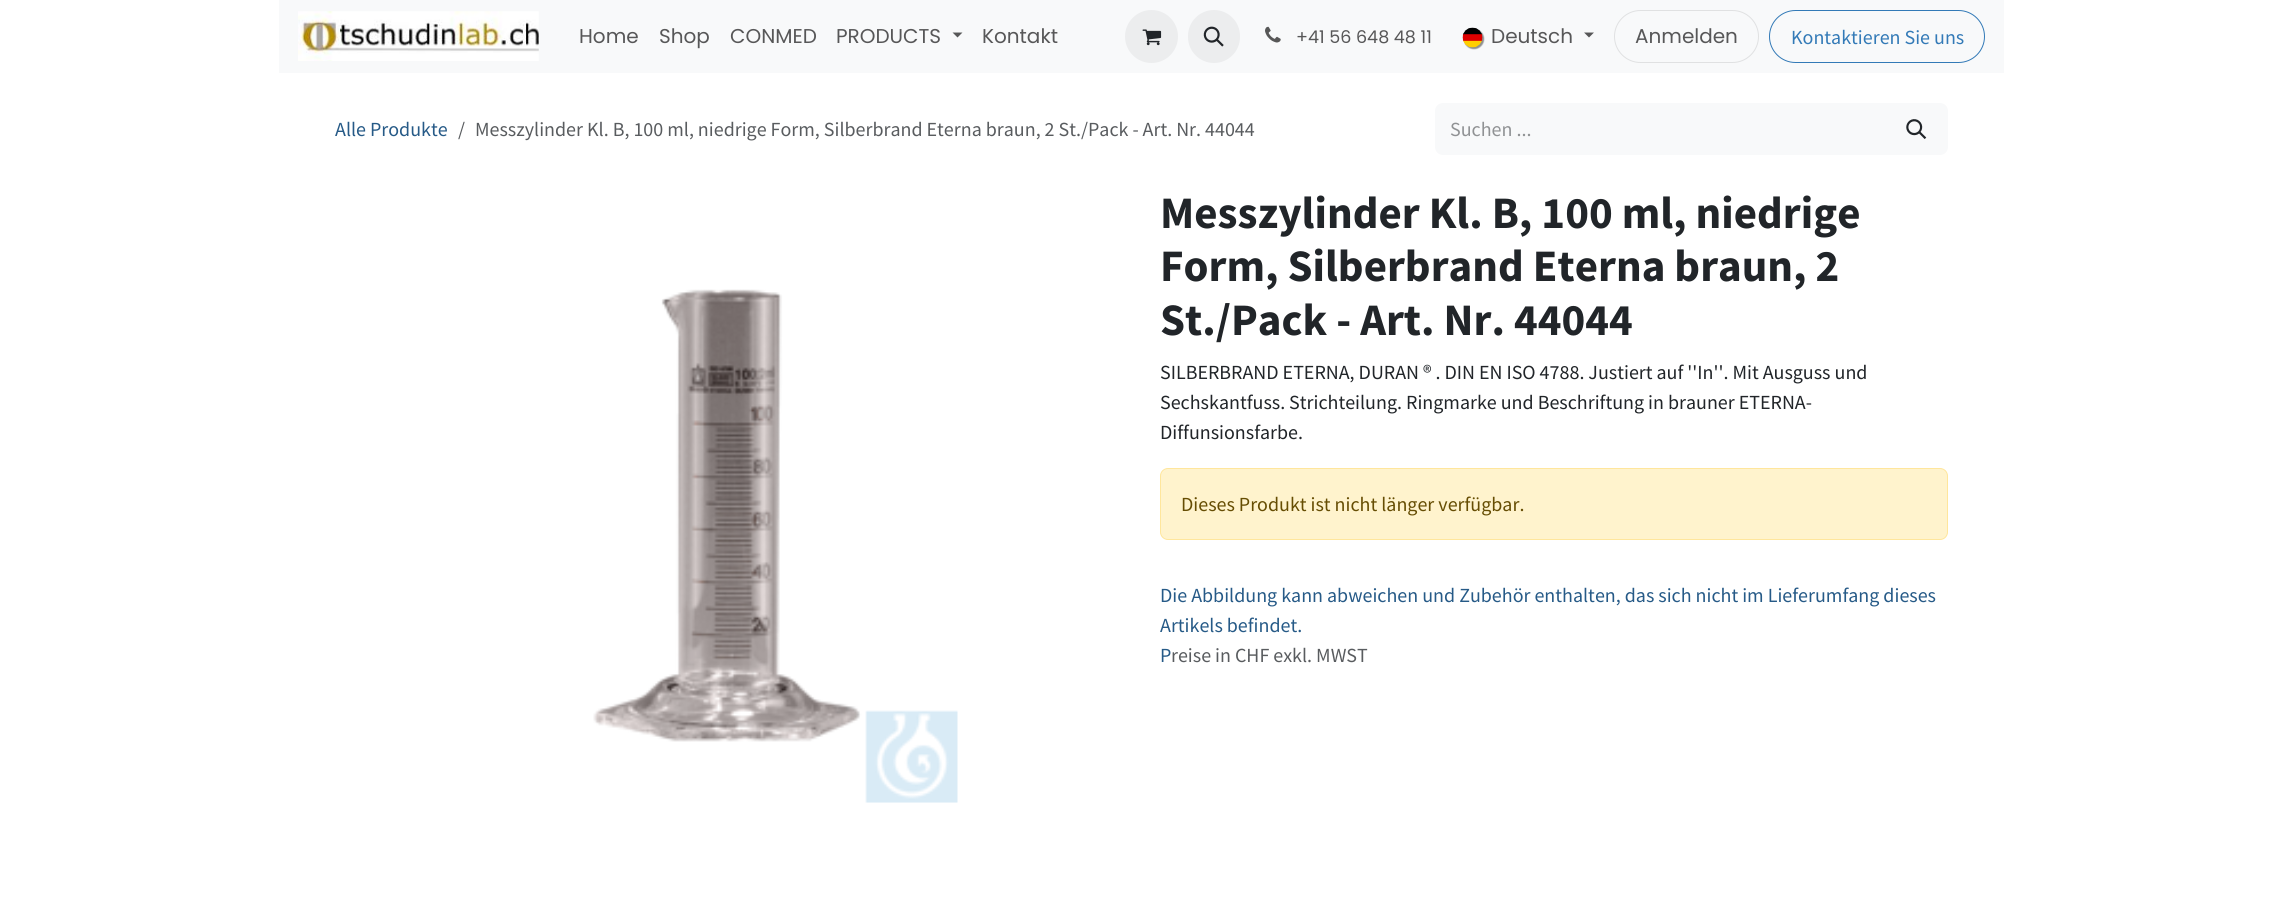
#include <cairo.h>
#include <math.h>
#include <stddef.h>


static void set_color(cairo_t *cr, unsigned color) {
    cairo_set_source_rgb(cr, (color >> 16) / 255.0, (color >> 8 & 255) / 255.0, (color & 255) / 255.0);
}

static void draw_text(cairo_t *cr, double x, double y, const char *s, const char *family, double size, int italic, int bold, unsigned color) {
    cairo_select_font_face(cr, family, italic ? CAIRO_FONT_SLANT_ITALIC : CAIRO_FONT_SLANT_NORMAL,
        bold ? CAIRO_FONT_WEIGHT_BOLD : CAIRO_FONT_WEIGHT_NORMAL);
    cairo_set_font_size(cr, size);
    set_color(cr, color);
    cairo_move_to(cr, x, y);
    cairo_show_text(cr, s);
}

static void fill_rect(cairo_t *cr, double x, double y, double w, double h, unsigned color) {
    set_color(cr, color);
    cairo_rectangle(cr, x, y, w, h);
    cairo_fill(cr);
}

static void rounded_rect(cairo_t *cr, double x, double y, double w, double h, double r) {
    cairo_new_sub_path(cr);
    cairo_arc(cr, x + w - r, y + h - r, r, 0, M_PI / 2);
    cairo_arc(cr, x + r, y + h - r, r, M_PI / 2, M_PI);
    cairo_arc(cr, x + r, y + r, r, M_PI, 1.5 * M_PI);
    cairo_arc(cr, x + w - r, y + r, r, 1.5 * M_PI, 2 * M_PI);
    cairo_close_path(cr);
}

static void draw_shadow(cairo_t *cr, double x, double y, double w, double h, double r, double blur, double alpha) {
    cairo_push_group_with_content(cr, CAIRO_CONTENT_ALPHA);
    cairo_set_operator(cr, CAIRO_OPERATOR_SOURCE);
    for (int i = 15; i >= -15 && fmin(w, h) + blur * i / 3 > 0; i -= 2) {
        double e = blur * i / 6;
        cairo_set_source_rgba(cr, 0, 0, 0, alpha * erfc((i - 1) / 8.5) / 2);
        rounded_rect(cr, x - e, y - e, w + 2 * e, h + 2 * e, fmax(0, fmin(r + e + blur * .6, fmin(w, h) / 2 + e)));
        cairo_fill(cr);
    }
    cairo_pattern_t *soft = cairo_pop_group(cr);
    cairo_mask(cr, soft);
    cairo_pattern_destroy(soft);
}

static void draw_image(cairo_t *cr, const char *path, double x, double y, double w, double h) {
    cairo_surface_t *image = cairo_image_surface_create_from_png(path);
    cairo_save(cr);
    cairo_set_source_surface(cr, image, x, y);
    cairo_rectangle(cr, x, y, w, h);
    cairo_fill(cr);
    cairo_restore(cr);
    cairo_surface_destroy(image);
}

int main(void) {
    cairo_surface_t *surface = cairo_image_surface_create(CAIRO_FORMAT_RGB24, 2282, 915);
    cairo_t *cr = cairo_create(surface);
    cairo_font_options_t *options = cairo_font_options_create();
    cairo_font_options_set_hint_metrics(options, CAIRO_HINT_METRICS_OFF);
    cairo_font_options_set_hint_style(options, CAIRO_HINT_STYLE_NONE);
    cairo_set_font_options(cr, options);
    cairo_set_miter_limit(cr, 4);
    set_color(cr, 0xFFFFFF);
    cairo_paint(cr);
    fill_rect(cr, 279, 0, 1725, 73, 0xF8F9FA);
    draw_image(cr, "assets/img1.png", 298, 11, 241, 50);
    draw_text(cr, 579, 43, "Home", "Poppins", 20, 0, 0, 0x575758);
    draw_text(cr, 659, 43, "Shop", "Poppins", 20, 0, 0, 0x575758);
    draw_text(cr, 730, 43, "CONMED", "Poppins", 20, 0, 0, 0x575758);
    draw_text(cr, 836, 43, "PRODUCTS", "Poppins", 20, 0, 0, 0x575758);
    cairo_new_path(cr);
    cairo_move_to(cr, 952.5, 32.5);
    cairo_line_to(cr, 962.5, 32.5);
    cairo_line_to(cr, 957.5, 37.5);
    cairo_close_path(cr);
    cairo_fill(cr);
    draw_text(cr, 982, 43, "Kontakt", "Poppins", 20, 0, 0, 0x575758);
    set_color(cr, 0xECEDEE);
    cairo_new_path(cr);
    cairo_arc(cr, 1151.5, 36.5, 26.5, 0, 2 * M_PI);
    cairo_fill(cr);
    draw_image(cr, "assets/img2.png", 1142, 29, 20, 17);
    rounded_rect(cr, 1188, 10, 52, 53, 26);
    cairo_fill(cr);
    draw_image(cr, "assets/img3.png", 1203, 26, 21, 21);
    draw_image(cr, "assets/img4.png", 1265, 26, 16, 17);
    draw_text(cr, 1296, 43, "+41 56 648 48 11", "Poppins", 17.5, 0, 0, 0x575758);
    set_color(cr, 0x000000);
    draw_shadow(cr, 1464, 29, 20, 20, 10, 0.5, 0.43);
    draw_image(cr, "assets/img5.png", 1462, 27, 21, 21);
    draw_text(cr, 1491, 43, "Deutsch", "Poppins", 20, 0, 0, 0x575758);
    cairo_new_path(cr);
    cairo_move_to(cr, 1584, 32.5);
    cairo_line_to(cr, 1594, 32.5);
    cairo_line_to(cr, 1589, 37.5);
    cairo_close_path(cr);
    cairo_fill(cr);
    rounded_rect(cr, 1614.5, 10.5, 144, 52, 26);
    set_color(cr, 0xE0E1E2);
    cairo_set_line_width(cr, 1);
    cairo_stroke(cr);
    draw_text(cr, 1635, 43, "Anmelden", "Poppins", 20, 0, 0, 0x575758);
    rounded_rect(cr, 1769.5, 10.5, 215, 52, 26);
    set_color(cr, 0x337AB7);
    cairo_stroke(cr);
    draw_text(cr, 1791, 44, "Kontaktieren Sie uns", "Source Sans Pro", 20, 0, 0, 0x337AB7);
    draw_text(cr, 335, 136, "Alle Produkte", "Source Sans Pro", 20, 0, 0, 0x265A87);
    draw_text(cr, 458, 136, "/", "Source Sans Pro", 20, 0, 0, 0x595C5F);
    draw_text(cr, 475, 136, "Messzylinder Kl. B, 100 ml, niedrige Form, Silberbrand Eterna braun, 2 St./Pack - Art. Nr. 44044", "Source Sans Pro", 20, 0, 0, 0x595C5F);
    set_color(cr, 0xF8F9FA);
    cairo_new_path(cr);
    cairo_move_to(cr, 1443, 103);
    cairo_line_to(cr, 1886, 103);
    cairo_line_to(cr, 1886, 155);
    cairo_line_to(cr, 1443, 155);
    cairo_curve_to(cr, 1438.5, 155, 1435, 151.5, 1435, 147);
    cairo_line_to(cr, 1435, 111);
    cairo_curve_to(cr, 1435, 106.5, 1438.5, 103, 1443, 103);
    cairo_close_path(cr);
    cairo_fill(cr);
    draw_text(cr, 1450, 136, "Suchen ...", "Source Sans Pro", 20, 0, 0, 0x909294);
    set_color(cr, 0xF8F9FA);
    cairo_new_path(cr);
    cairo_move_to(cr, 1885, 103);
    cairo_line_to(cr, 1940, 103);
    cairo_curve_to(cr, 1944.5, 103, 1948, 106.5, 1948, 111);
    cairo_line_to(cr, 1948, 147);
    cairo_curve_to(cr, 1948, 151.5, 1944.5, 155, 1940, 155);
    cairo_line_to(cr, 1885, 155);
    cairo_close_path(cr);
    cairo_fill(cr);
    draw_image(cr, "assets/img6.png", 1906, 119, 21, 20);
    draw_image(cr, "assets/img7.png", 593, 289, 365, 514);
    draw_text(cr, 1160, 228, "Messzylinder Kl. B, 100 ml, niedrige", "Source Sans Pro", 45, 0, 1, 0x212529);
    draw_text(cr, 1160, 281, "Form, Silberbrand Eterna braun, 2", "Source Sans Pro", 45, 0, 1, 0x212529);
    draw_text(cr, 1160, 335, "St./Pack - Art. Nr. 44044", "Source Sans Pro", 45, 0, 1, 0x212529);
    draw_text(cr, 1160, 379, "SILBERBRAND ETERNA, DURAN ® . DIN EN ISO 4788. Justiert auf ''In''. Mit Ausguss und", "Source Sans Pro", 20, 0, 0, 0x212529);
    draw_text(cr, 1160, 409, "Sechskantfuss. Strichteilung. Ringmarke und Beschriftung in brauner ETERNA-", "Source Sans Pro", 20, 0, 0, 0x212529);
    draw_text(cr, 1160, 439, "Diffunsionsfarbe.", "Source Sans Pro", 20, 0, 0, 0x212529);
    set_color(cr, 0xFFF3CD);
    rounded_rect(cr, 1160.5, 468.5, 787, 71, 7.5);
    cairo_fill_preserve(cr);
    set_color(cr, 0xFFE69C);
    cairo_stroke(cr);
    draw_text(cr, 1181, 511, "Dieses Produkt ist nicht länger verfügbar.", "Source Sans Pro", 20, 0, 0, 0x664D03);
    draw_text(cr, 1160, 602, "Die Abbildung kann abweichen und Zubehör enthalten, das sich nicht im Lieferumfang dieses", "Source Sans Pro", 20, 0, 0, 0x265A87);
    draw_text(cr, 1160, 632, "Artikels befindet.", "Source Sans Pro", 20, 0, 0, 0x265A87);
    draw_text(cr, 1160, 662, "P", "Source Sans Pro", 20, 0, 0, 0x265A87);
    draw_text(cr, 1171, 662, "reise in CHF exkl. MWST", "Source Sans Pro", 20, 0, 0, 0x595C5F);
    cairo_surface_write_to_png(surface, "output.png");
    cairo_font_options_destroy(options);
    cairo_destroy(cr);
    cairo_surface_destroy(surface);
    return 0;
}
